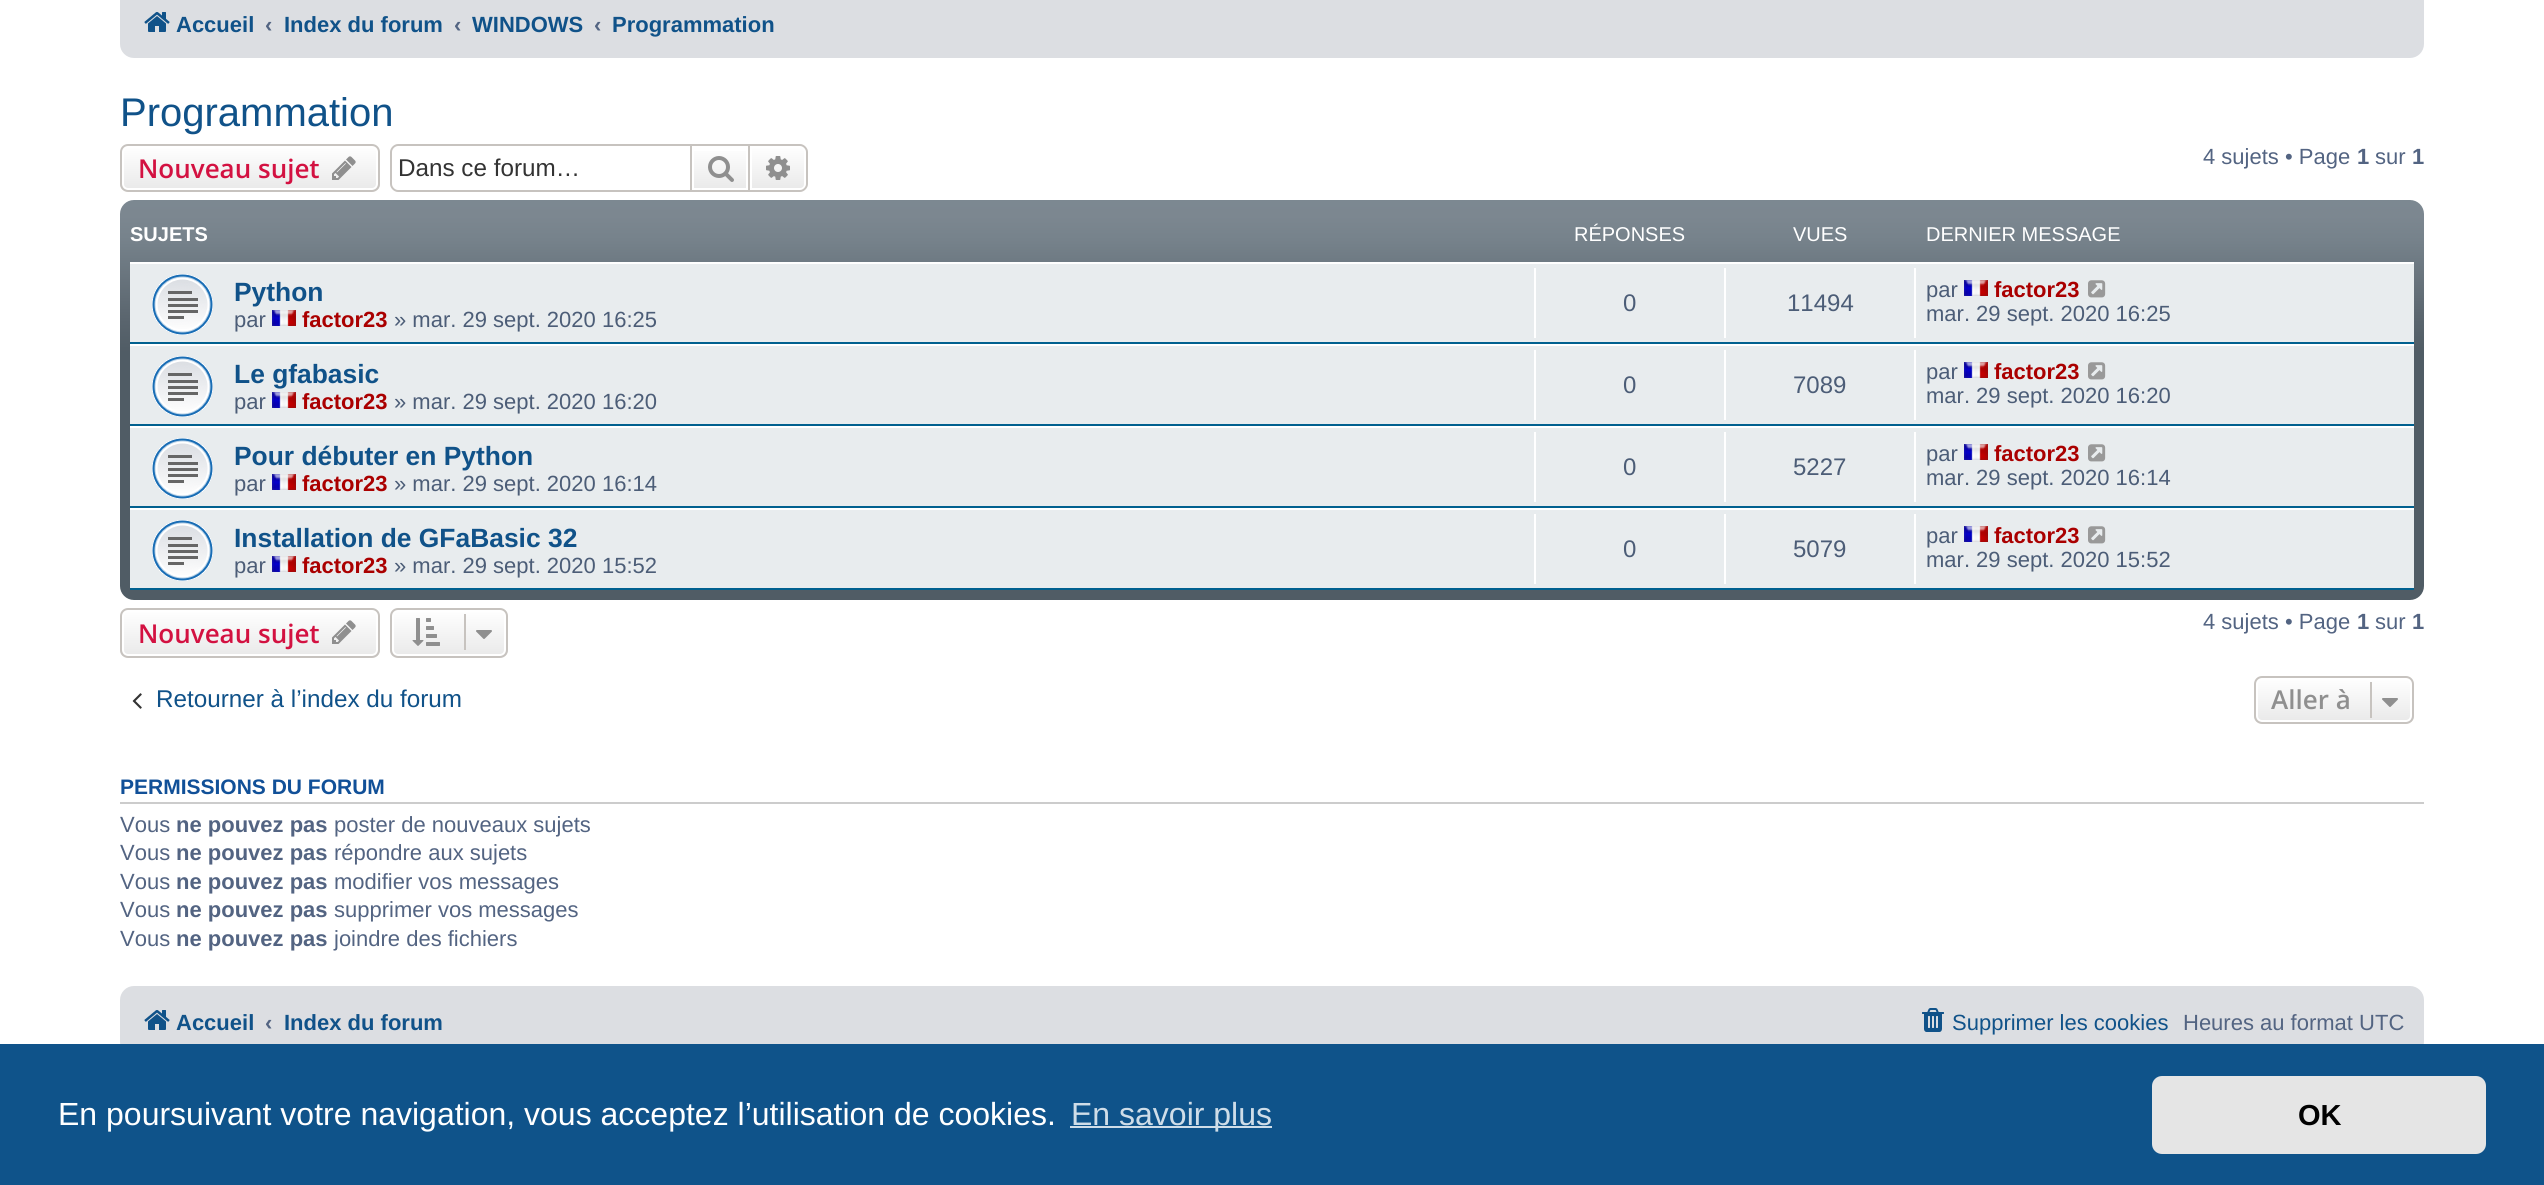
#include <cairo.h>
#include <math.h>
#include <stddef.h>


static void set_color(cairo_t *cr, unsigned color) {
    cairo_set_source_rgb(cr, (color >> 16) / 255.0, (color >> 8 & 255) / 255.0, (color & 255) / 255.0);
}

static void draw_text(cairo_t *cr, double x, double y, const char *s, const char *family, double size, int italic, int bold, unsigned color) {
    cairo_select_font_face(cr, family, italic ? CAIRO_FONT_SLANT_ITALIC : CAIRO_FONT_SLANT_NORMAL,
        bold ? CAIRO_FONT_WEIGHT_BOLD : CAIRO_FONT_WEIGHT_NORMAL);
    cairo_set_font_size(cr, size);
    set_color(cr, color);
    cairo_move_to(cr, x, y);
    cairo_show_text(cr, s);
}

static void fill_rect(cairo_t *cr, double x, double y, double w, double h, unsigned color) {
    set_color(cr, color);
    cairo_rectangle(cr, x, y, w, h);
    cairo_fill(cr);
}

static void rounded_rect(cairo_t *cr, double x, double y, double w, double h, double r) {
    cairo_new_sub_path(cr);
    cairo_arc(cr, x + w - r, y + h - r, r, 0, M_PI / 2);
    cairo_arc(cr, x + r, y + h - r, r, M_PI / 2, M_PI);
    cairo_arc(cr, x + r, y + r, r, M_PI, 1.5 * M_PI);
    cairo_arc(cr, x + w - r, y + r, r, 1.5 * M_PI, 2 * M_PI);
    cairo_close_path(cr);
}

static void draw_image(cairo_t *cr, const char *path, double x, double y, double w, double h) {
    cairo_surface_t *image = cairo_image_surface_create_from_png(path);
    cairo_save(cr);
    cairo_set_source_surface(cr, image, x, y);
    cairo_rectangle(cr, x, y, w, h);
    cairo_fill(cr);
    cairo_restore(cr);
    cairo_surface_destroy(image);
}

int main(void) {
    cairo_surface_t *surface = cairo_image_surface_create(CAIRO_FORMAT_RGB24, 2544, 1185);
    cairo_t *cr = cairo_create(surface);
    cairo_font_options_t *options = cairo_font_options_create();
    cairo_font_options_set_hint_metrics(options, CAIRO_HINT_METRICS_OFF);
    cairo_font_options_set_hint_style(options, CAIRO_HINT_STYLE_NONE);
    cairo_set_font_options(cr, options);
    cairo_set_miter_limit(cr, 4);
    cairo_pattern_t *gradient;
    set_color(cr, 0xFFFFFF);
    cairo_paint(cr);
    set_color(cr, 0xDCDEE2);
    rounded_rect(cr, 120, -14, 2304, 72, 14);
    cairo_fill(cr);
    draw_image(cr, "assets/img1.png", 144, 12, 26, 20);
    draw_text(cr, 176, 32, "Accueil", "Liberation Sans", 22, 0, 1, 0x105289);
    draw_text(cr, 265, 32, "‹", "Liberation Sans", 22, 0, 1, 0x536482);
    draw_text(cr, 284, 32, "Index du forum", "Liberation Sans", 22, 0, 1, 0x105289);
    draw_text(cr, 454, 32, "‹", "Liberation Sans", 22, 0, 1, 0x536482);
    draw_text(cr, 472, 32, "WINDOWS", "Liberation Sans", 22, 0, 1, 0x105289);
    draw_text(cr, 594, 32, "‹", "Liberation Sans", 22, 0, 1, 0x536482);
    draw_text(cr, 612, 32, "Programmation", "Liberation Sans", 22, 0, 1, 0x105289);
    draw_text(cr, 120, 126, "Programmation", "Liberation Sans", 40, 0, 0, 0x105289);
    cairo_save(cr);
    rounded_rect(cr, 120, 144, 260, 48, 8);
    cairo_clip(cr);
    gradient = cairo_pattern_create_linear(250, 146, 250, 190);
    cairo_pattern_add_color_stop_rgba(gradient, 0, 1, 1, 1, 1);
    cairo_pattern_add_color_stop_rgba(gradient, 1, 0.914, 0.914, 0.914, 1);
    cairo_set_source(cr, gradient);
    cairo_pattern_destroy(gradient);
    cairo_rectangle(cr, 120, 146, 260, 44);
    cairo_fill(cr);
    cairo_restore(cr);
    rounded_rect(cr, 123, 147, 254, 42, 5);
    set_color(cr, 0xFFFFFF);
    cairo_stroke(cr);
    rounded_rect(cr, 121, 145, 258, 46, 7);
    set_color(cr, 0xC7C3BF);
    cairo_stroke(cr);
    draw_text(cr, 138, 178, "Nouveau sujet", "Open Sans SemiBold", 26, 0, 0, 0xD31141);
    draw_image(cr, "assets/img2.png", 332, 156, 24, 24);
    set_color(cr, 0xC7C3BF);
    cairo_set_fill_rule(cr, CAIRO_FILL_RULE_EVEN_ODD);
    cairo_new_path(cr);
    cairo_move_to(cr, 398, 144);
    cairo_line_to(cr, 690, 144);
    cairo_line_to(cr, 690, 192);
    cairo_line_to(cr, 398, 192);
    cairo_curve_to(cr, 394, 192, 390, 188, 390, 184);
    cairo_line_to(cr, 390, 152);
    cairo_curve_to(cr, 390, 148, 394, 144, 398, 144);
    cairo_close_path(cr);
    cairo_move_to(cr, 398, 146);
    cairo_line_to(cr, 690, 146);
    cairo_line_to(cr, 690, 190);
    cairo_line_to(cr, 398, 190);
    cairo_curve_to(cr, 395, 190, 392, 187, 392, 184);
    cairo_line_to(cr, 392, 152);
    cairo_curve_to(cr, 392, 149, 395, 146, 398, 146);
    cairo_close_path(cr);
    cairo_fill(cr);
    draw_text(cr, 398, 176, "Dans ce forum…", "Liberation Sans", 24.25, 0, 0, 0x333333);
    gradient = cairo_pattern_create_linear(720, 146, 720, 190);
    cairo_pattern_add_color_stop_rgba(gradient, 0, 1, 1, 1, 1);
    cairo_pattern_add_color_stop_rgba(gradient, 1, 0.914, 0.914, 0.914, 1);
    cairo_set_source(cr, gradient);
    cairo_pattern_destroy(gradient);
    cairo_rectangle(cr, 694, 151, 52, 37);
    cairo_fill(cr);
    cairo_rectangle(cr, 691, 145, 58, 46);
    set_color(cr, 0xC7C3BF);
    cairo_stroke(cr);
    draw_image(cr, "assets/img3.png", 708, 156, 26, 26);
    gradient = cairo_pattern_create_linear(778, 146, 778, 190);
    cairo_pattern_add_color_stop_rgba(gradient, 0, 1, 1, 1, 1);
    cairo_pattern_add_color_stop_rgba(gradient, 1, 0.914, 0.914, 0.914, 1);
    cairo_set_source(cr, gradient);
    cairo_pattern_destroy(gradient);
    cairo_new_path(cr);
    cairo_move_to(cr, 751, 147);
    cairo_line_to(cr, 800, 147);
    cairo_curve_to(cr, 803, 147, 805, 149, 805, 152);
    cairo_line_to(cr, 805, 184);
    cairo_curve_to(cr, 805, 187, 803, 189, 800, 189);
    cairo_line_to(cr, 751, 189);
    cairo_close_path(cr);
    cairo_fill_preserve(cr);
    set_color(cr, 0xFFFFFF);
    cairo_stroke(cr);
    set_color(cr, 0xC7C3BF);
    cairo_new_path(cr);
    cairo_move_to(cr, 750, 144);
    cairo_line_to(cr, 800, 144);
    cairo_curve_to(cr, 804, 144, 808, 148, 808, 152);
    cairo_line_to(cr, 808, 184);
    cairo_curve_to(cr, 808, 188, 804, 192, 800, 192);
    cairo_line_to(cr, 750, 192);
    cairo_close_path(cr);
    cairo_move_to(cr, 750, 146);
    cairo_line_to(cr, 800, 146);
    cairo_curve_to(cr, 803, 146, 806, 149, 806, 152);
    cairo_line_to(cr, 806, 184);
    cairo_curve_to(cr, 806, 187, 803, 190, 800, 190);
    cairo_line_to(cr, 750, 190);
    cairo_close_path(cr);
    cairo_fill(cr);
    draw_image(cr, "assets/img4.png", 766, 156, 24, 24);
    draw_text(cr, 2203, 164, "4 sujets • Page", "Liberation Sans", 22, 0, 0, 0x536482);
    draw_text(cr, 2357, 164, "1", "Liberation Sans", 22, 0, 1, 0x536482);
    draw_text(cr, 2375, 164, "sur", "Liberation Sans", 22, 0, 0, 0x536482);
    draw_text(cr, 2412, 164, "1", "Liberation Sans", 22, 0, 1, 0x536482);
    gradient = cairo_pattern_create_linear(1272, 200, 1272, 600);
    cairo_pattern_add_color_stop_rgba(gradient, 0, 0.486, 0.533, 0.569, 1);
    cairo_pattern_add_color_stop_rgba(gradient, 0.04, 0.486, 0.529, 0.565, 1);
    cairo_pattern_add_color_stop_rgba(gradient, 0.1, 0.463, 0.51, 0.545, 1);
    cairo_pattern_add_color_stop_rgba(gradient, 0.29, 0.357, 0.4, 0.435, 1);
    cairo_pattern_add_color_stop_rgba(gradient, 0.38, 0.314, 0.361, 0.396, 1);
    cairo_pattern_add_color_stop_rgba(gradient, 1, 0.314, 0.361, 0.396, 1);
    cairo_set_source(cr, gradient);
    cairo_pattern_destroy(gradient);
    rounded_rect(cr, 120, 200, 2304, 400, 14);
    cairo_fill(cr);
    draw_text(cr, 130, 241, "SUJETS", "Liberation Sans", 20, 0, 1, 0xFFFFFF);
    draw_text(cr, 1574, 241, "RÉPONSES", "Liberation Sans", 20, 0, 0, 0xFFFFFF);
    draw_text(cr, 1793, 241, "VUES", "Liberation Sans", 20, 0, 0, 0xFFFFFF);
    draw_text(cr, 1926, 241, "DERNIER MESSAGE", "Liberation Sans", 20, 0, 0, 0xFFFFFF);
    fill_rect(cr, 130, 264, 2284, 78, 0xE8ECEE);
    fill_rect(cr, 130, 262, 2284, 2, 0xFFFFFF);
    fill_rect(cr, 130, 342, 2284, 2, 0x00608F);
    draw_image(cr, "assets/img5.png", 152, 274, 61, 61);
    draw_text(cr, 234, 301, "Python", "Liberation Sans", 26.4, 0, 1, 0x105289);
    draw_text(cr, 234, 327, "par", "Liberation Sans", 22, 0, 0, 0x4C5D77);
    draw_image(cr, "assets/img6.png", 272, 310, 24, 16);
    draw_text(cr, 302, 327, "factor23", "Liberation Sans", 22, 0, 1, 0xAA0000);
    draw_text(cr, 394, 327, "» mar. 29 sept. 2020 16:25", "Liberation Sans", 22, 0, 0, 0x4C5D77);
    fill_rect(cr, 1534, 268, 2, 70, 0xFFFFFF);
    draw_text(cr, 1623, 311, "0", "Liberation Sans", 24, 0, 0, 0x4C5D77);
    fill_rect(cr, 1724, 268, 2, 70, 0xFFFFFF);
    draw_text(cr, 1787, 311, "11494", "Liberation Sans", 24, 0, 0, 0x4C5D77);
    fill_rect(cr, 1914, 268, 2, 70, 0xFFFFFF);
    draw_text(cr, 1926, 297, "par", "Liberation Sans", 22, 0, 0, 0x4C5D77);
    draw_image(cr, "assets/img6.png", 1964, 280, 24, 16);
    draw_text(cr, 1994, 297, "factor23", "Liberation Sans", 22, 0, 1, 0xAA0000);
    draw_image(cr, "assets/img7.png", 2088, 280, 18, 18);
    draw_text(cr, 1926, 321, "mar. 29 sept. 2020 16:25", "Liberation Sans", 22, 0, 0, 0x4C5D77);
    fill_rect(cr, 130, 346, 2284, 78, 0xE8ECEE);
    fill_rect(cr, 130, 344, 2284, 2, 0xFFFFFF);
    fill_rect(cr, 130, 424, 2284, 2, 0x00608F);
    draw_image(cr, "assets/img5.png", 152, 356, 61, 61);
    draw_text(cr, 234, 383, "Le gfabasic", "Liberation Sans", 26.4, 0, 1, 0x105289);
    draw_text(cr, 234, 409, "par", "Liberation Sans", 22, 0, 0, 0x4C5D77);
    draw_image(cr, "assets/img6.png", 272, 392, 24, 16);
    draw_text(cr, 302, 409, "factor23", "Liberation Sans", 22, 0, 1, 0xAA0000);
    draw_text(cr, 394, 409, "» mar. 29 sept. 2020 16:20", "Liberation Sans", 22, 0, 0, 0x4C5D77);
    fill_rect(cr, 1534, 350, 2, 70, 0xFFFFFF);
    draw_text(cr, 1623, 393, "0", "Liberation Sans", 24, 0, 0, 0x4C5D77);
    fill_rect(cr, 1724, 350, 2, 70, 0xFFFFFF);
    draw_text(cr, 1793, 393, "7089", "Liberation Sans", 24, 0, 0, 0x4C5D77);
    fill_rect(cr, 1914, 350, 2, 70, 0xFFFFFF);
    draw_text(cr, 1926, 379, "par", "Liberation Sans", 22, 0, 0, 0x4C5D77);
    draw_image(cr, "assets/img6.png", 1964, 362, 24, 16);
    draw_text(cr, 1994, 379, "factor23", "Liberation Sans", 22, 0, 1, 0xAA0000);
    draw_image(cr, "assets/img7.png", 2088, 362, 18, 18);
    draw_text(cr, 1926, 403, "mar. 29 sept. 2020 16:20", "Liberation Sans", 22, 0, 0, 0x4C5D77);
    fill_rect(cr, 130, 428, 2284, 78, 0xE8ECEE);
    fill_rect(cr, 130, 426, 2284, 2, 0xFFFFFF);
    fill_rect(cr, 130, 506, 2284, 2, 0x00608F);
    draw_image(cr, "assets/img5.png", 152, 438, 61, 61);
    draw_text(cr, 234, 465, "Pour débuter en Python", "Liberation Sans", 26.4, 0, 1, 0x105289);
    draw_text(cr, 234, 491, "par", "Liberation Sans", 22, 0, 0, 0x4C5D77);
    draw_image(cr, "assets/img6.png", 272, 474, 24, 16);
    draw_text(cr, 302, 491, "factor23", "Liberation Sans", 22, 0, 1, 0xAA0000);
    draw_text(cr, 394, 491, "» mar. 29 sept. 2020 16:14", "Liberation Sans", 22, 0, 0, 0x4C5D77);
    fill_rect(cr, 1534, 432, 2, 70, 0xFFFFFF);
    draw_text(cr, 1623, 475, "0", "Liberation Sans", 24, 0, 0, 0x4C5D77);
    fill_rect(cr, 1724, 432, 2, 70, 0xFFFFFF);
    draw_text(cr, 1793, 475, "5227", "Liberation Sans", 24, 0, 0, 0x4C5D77);
    fill_rect(cr, 1914, 432, 2, 70, 0xFFFFFF);
    draw_text(cr, 1926, 461, "par", "Liberation Sans", 22, 0, 0, 0x4C5D77);
    draw_image(cr, "assets/img6.png", 1964, 444, 24, 16);
    draw_text(cr, 1994, 461, "factor23", "Liberation Sans", 22, 0, 1, 0xAA0000);
    draw_image(cr, "assets/img7.png", 2088, 444, 18, 18);
    draw_text(cr, 1926, 485, "mar. 29 sept. 2020 16:14", "Liberation Sans", 22, 0, 0, 0x4C5D77);
    fill_rect(cr, 130, 510, 2284, 78, 0xE8ECEE);
    fill_rect(cr, 130, 508, 2284, 2, 0xFFFFFF);
    fill_rect(cr, 130, 588, 2284, 2, 0x00608F);
    draw_image(cr, "assets/img5.png", 152, 520, 61, 61);
    draw_text(cr, 234, 547, "Installation de GFaBasic 32", "Liberation Sans", 26.4, 0, 1, 0x105289);
    draw_text(cr, 234, 573, "par", "Liberation Sans", 22, 0, 0, 0x4C5D77);
    draw_image(cr, "assets/img6.png", 272, 556, 24, 16);
    draw_text(cr, 302, 573, "factor23", "Liberation Sans", 22, 0, 1, 0xAA0000);
    draw_text(cr, 394, 573, "» mar. 29 sept. 2020 15:52", "Liberation Sans", 22, 0, 0, 0x4C5D77);
    fill_rect(cr, 1534, 514, 2, 70, 0xFFFFFF);
    draw_text(cr, 1623, 557, "0", "Liberation Sans", 24, 0, 0, 0x4C5D77);
    fill_rect(cr, 1724, 514, 2, 70, 0xFFFFFF);
    draw_text(cr, 1793, 557, "5079", "Liberation Sans", 24, 0, 0, 0x4C5D77);
    fill_rect(cr, 1914, 514, 2, 70, 0xFFFFFF);
    draw_text(cr, 1926, 543, "par", "Liberation Sans", 22, 0, 0, 0x4C5D77);
    draw_image(cr, "assets/img6.png", 1964, 526, 24, 16);
    draw_text(cr, 1994, 543, "factor23", "Liberation Sans", 22, 0, 1, 0xAA0000);
    draw_image(cr, "assets/img7.png", 2088, 526, 18, 18);
    draw_text(cr, 1926, 567, "mar. 29 sept. 2020 15:52", "Liberation Sans", 22, 0, 0, 0x4C5D77);
    cairo_save(cr);
    cairo_set_fill_rule(cr, CAIRO_FILL_RULE_WINDING);
    rounded_rect(cr, 120, 608, 260, 50, 8);
    cairo_clip(cr);
    gradient = cairo_pattern_create_linear(250, 610, 250, 656);
    cairo_pattern_add_color_stop_rgba(gradient, 0, 1, 1, 1, 1);
    cairo_pattern_add_color_stop_rgba(gradient, 1, 0.914, 0.914, 0.914, 1);
    cairo_set_source(cr, gradient);
    cairo_pattern_destroy(gradient);
    cairo_rectangle(cr, 120, 610, 260, 46);
    cairo_fill(cr);
    cairo_restore(cr);
    rounded_rect(cr, 123, 611, 254, 44, 5);
    set_color(cr, 0xFFFFFF);
    cairo_stroke(cr);
    rounded_rect(cr, 121, 609, 258, 48, 7);
    set_color(cr, 0xC7C3BF);
    cairo_stroke(cr);
    draw_text(cr, 138, 643, "Nouveau sujet", "Open Sans SemiBold", 26, 0, 0, 0xD31141);
    draw_image(cr, "assets/img8.png", 332, 620, 24, 24);
    cairo_save(cr);
    cairo_set_fill_rule(cr, CAIRO_FILL_RULE_WINDING);
    rounded_rect(cr, 390, 608, 118, 50, 8);
    cairo_clip(cr);
    gradient = cairo_pattern_create_linear(449, 610, 449, 656);
    cairo_pattern_add_color_stop_rgba(gradient, 0, 1, 1, 1, 1);
    cairo_pattern_add_color_stop_rgba(gradient, 1, 0.914, 0.914, 0.914, 1);
    cairo_set_source(cr, gradient);
    cairo_pattern_destroy(gradient);
    cairo_rectangle(cr, 390, 610, 118, 46);
    cairo_fill(cr);
    cairo_restore(cr);
    rounded_rect(cr, 393, 611, 112, 44, 5);
    set_color(cr, 0xFFFFFF);
    cairo_stroke(cr);
    rounded_rect(cr, 391, 609, 116, 48, 7);
    set_color(cr, 0xC7C3BF);
    cairo_stroke(cr);
    draw_image(cr, "assets/img9.png", 412, 618, 28, 28);
    fill_rect(cr, 464, 614, 2, 36, 0xC7C3BF);
    draw_image(cr, "assets/img10.png", 476, 630, 16, 9);
    draw_text(cr, 2203, 629, "4 sujets • Page", "Liberation Sans", 22, 0, 0, 0x536482);
    draw_text(cr, 2357, 629, "1", "Liberation Sans", 22, 0, 1, 0x536482);
    draw_text(cr, 2375, 629, "sur", "Liberation Sans", 22, 0, 0, 0x536482);
    draw_text(cr, 2412, 629, "1", "Liberation Sans", 22, 0, 1, 0x536482);
    draw_image(cr, "assets/img11.png", 132, 693, 10, 16);
    draw_text(cr, 156, 707, "Retourner à l’index du forum", "Liberation Sans", 24.25, 0, 0, 0x105289);
    cairo_save(cr);
    cairo_set_fill_rule(cr, CAIRO_FILL_RULE_WINDING);
    rounded_rect(cr, 2254, 676, 160, 48, 8);
    cairo_clip(cr);
    gradient = cairo_pattern_create_linear(2334, 678, 2334, 722);
    cairo_pattern_add_color_stop_rgba(gradient, 0, 1, 1, 1, 1);
    cairo_pattern_add_color_stop_rgba(gradient, 1, 0.914, 0.914, 0.914, 1);
    cairo_set_source(cr, gradient);
    cairo_pattern_destroy(gradient);
    cairo_rectangle(cr, 2254, 678, 160, 44);
    cairo_fill(cr);
    cairo_restore(cr);
    rounded_rect(cr, 2257, 679, 154, 42, 5);
    set_color(cr, 0xFFFFFF);
    cairo_stroke(cr);
    rounded_rect(cr, 2255, 677, 158, 46, 7);
    set_color(cr, 0xC7C3BF);
    cairo_stroke(cr);
    draw_text(cr, 2271, 709, "Aller à", "Open Sans SemiBold", 26, 0, 0, 0x8F8F8F);
    fill_rect(cr, 2370, 682, 2, 36, 0xC7C3BF);
    draw_image(cr, "assets/img12.png", 2382, 698, 16, 9);
    fill_rect(cr, 120, 802, 2304, 2, 0xCCCCCC);
    draw_text(cr, 120, 794, "PERMISSIONS DU FORUM", "Liberation Sans", 21, 0, 1, 0x115098);
    draw_text(cr, 120, 832, "Vous", "Liberation Sans", 22, 0, 0, 0x536482);
    draw_text(cr, 176, 832, "ne pouvez pas", "Liberation Sans", 22, 0, 1, 0x536482);
    draw_text(cr, 334, 832, "poster de nouveaux sujets", "Liberation Sans", 22, 0, 0, 0x536482);
    draw_text(cr, 120, 860, "Vous", "Liberation Sans", 22, 0, 0, 0x536482);
    draw_text(cr, 176, 860, "ne pouvez pas", "Liberation Sans", 22, 0, 1, 0x536482);
    draw_text(cr, 334, 860, "répondre aux sujets", "Liberation Sans", 22, 0, 0, 0x536482);
    draw_text(cr, 120, 889, "Vous", "Liberation Sans", 22, 0, 0, 0x536482);
    draw_text(cr, 176, 889, "ne pouvez pas", "Liberation Sans", 22, 0, 1, 0x536482);
    draw_text(cr, 334, 889, "modifier vos messages", "Liberation Sans", 22, 0, 0, 0x536482);
    draw_text(cr, 120, 917, "Vous", "Liberation Sans", 22, 0, 0, 0x536482);
    draw_text(cr, 176, 917, "ne pouvez pas", "Liberation Sans", 22, 0, 1, 0x536482);
    draw_text(cr, 334, 917, "supprimer vos messages", "Liberation Sans", 22, 0, 0, 0x536482);
    draw_text(cr, 120, 946, "Vous", "Liberation Sans", 22, 0, 0, 0x536482);
    draw_text(cr, 176, 946, "ne pouvez pas", "Liberation Sans", 22, 0, 1, 0x536482);
    draw_text(cr, 334, 946, "joindre des fichiers", "Liberation Sans", 22, 0, 0, 0x536482);
    set_color(cr, 0xDCDEE2);
    rounded_rect(cr, 120, 986, 2304, 70, 14);
    cairo_fill(cr);
    draw_image(cr, "assets/img1.png", 144, 1010, 26, 20);
    draw_text(cr, 176, 1030, "Accueil", "Liberation Sans", 22, 0, 1, 0x105289);
    draw_text(cr, 265, 1030, "‹", "Liberation Sans", 22, 0, 1, 0x536482);
    draw_text(cr, 284, 1030, "Index du forum", "Liberation Sans", 22, 0, 1, 0x105289);
    draw_image(cr, "assets/img13.png", 1922, 1008, 22, 24);
    draw_text(cr, 1952, 1030, "Supprimer les cookies", "Liberation Sans", 22, 0, 0, 0x105289);
    draw_text(cr, 2183, 1030, "Heures au format UTC", "Liberation Sans", 22, 0, 0, 0x536482);
    fill_rect(cr, 0, 1044, 2544, 141, 0x0F538A);
    draw_text(cr, 58, 1125, "En poursuivant votre navigation, vous acceptez l’utilisation de cookies.", "Liberation Sans", 32, 0, 0, 0xFFFFFF);
    fill_rect(cr, 1070, 1126, 202, 2, 0xCFDDE8);
    draw_text(cr, 1071, 1125, "En savoir plus", "Liberation Sans", 32, 0, 0, 0xCFDDE8);
    set_color(cr, 0xE5E5E5);
    rounded_rect(cr, 2152, 1076, 334, 78, 10);
    cairo_fill(cr);
    draw_text(cr, 2298, 1125, "OK", "Liberation Sans", 29, 0, 1, 0x000000);
    cairo_surface_write_to_png(surface, "output.png");
    cairo_font_options_destroy(options);
    cairo_destroy(cr);
    cairo_surface_destroy(surface);
    return 0;
}
